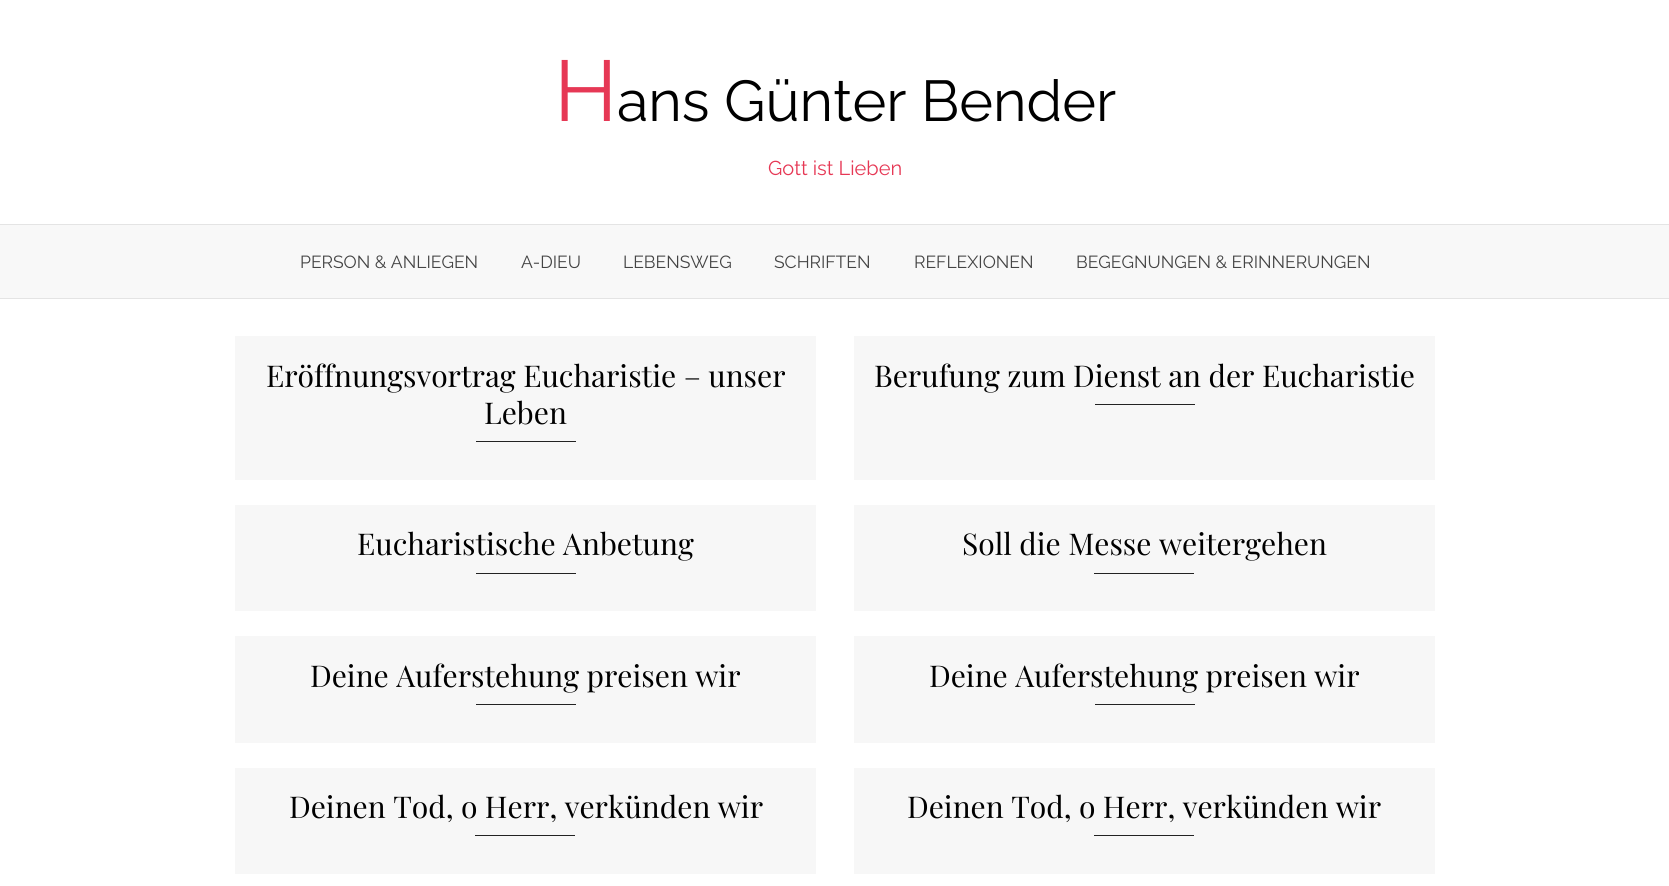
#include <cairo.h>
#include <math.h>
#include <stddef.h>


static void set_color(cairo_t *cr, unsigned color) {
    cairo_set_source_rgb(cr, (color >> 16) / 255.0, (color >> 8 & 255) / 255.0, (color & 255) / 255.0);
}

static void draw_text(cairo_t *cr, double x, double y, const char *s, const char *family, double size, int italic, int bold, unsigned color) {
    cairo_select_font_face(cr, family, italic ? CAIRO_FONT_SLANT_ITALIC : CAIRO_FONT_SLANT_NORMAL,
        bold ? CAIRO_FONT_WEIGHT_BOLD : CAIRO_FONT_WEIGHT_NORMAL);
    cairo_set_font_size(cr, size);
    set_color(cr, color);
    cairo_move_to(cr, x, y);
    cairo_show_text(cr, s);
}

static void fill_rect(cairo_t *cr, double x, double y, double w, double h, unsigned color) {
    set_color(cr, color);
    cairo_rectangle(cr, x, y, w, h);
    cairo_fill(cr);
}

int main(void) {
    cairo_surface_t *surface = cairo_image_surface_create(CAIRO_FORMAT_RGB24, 1669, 886);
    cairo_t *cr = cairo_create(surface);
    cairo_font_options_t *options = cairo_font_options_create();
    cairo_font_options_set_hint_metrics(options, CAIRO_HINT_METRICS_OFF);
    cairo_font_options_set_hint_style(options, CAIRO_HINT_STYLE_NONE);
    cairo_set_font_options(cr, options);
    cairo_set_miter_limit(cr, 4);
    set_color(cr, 0xFFFFFF);
    cairo_paint(cr);
    draw_text(cr, 554, 121, "H", "Raleway", 86, 0, 0, 0xE63855);
    draw_text(cr, 617, 121, "ans Günter Bender", "Raleway", 57.5, 0, 0, 0x000000);
    draw_text(cr, 768, 175, "Gott ist Lieben", "Raleway", 20, 0, 0, 0xE63855);
    fill_rect(cr, 0, 225, 1669, 73, 0xF8F8F8);
    fill_rect(cr, 0, 224, 1669, 1, 0xE4E4E4);
    fill_rect(cr, 0, 298, 1669, 1, 0xE4E4E4);
    draw_text(cr, 300, 268, "PERSON & ANLIEGEN", "Raleway", 17.5, 0, 0, 0x444444);
    draw_text(cr, 521, 268, "A-DIEU", "Raleway", 17.5, 0, 0, 0x444444);
    draw_text(cr, 623, 268, "LEBENSWEG", "Raleway", 17.5, 0, 0, 0x444444);
    draw_text(cr, 774, 268, "SCHRIFTEN", "Raleway", 17.5, 0, 0, 0x444444);
    draw_text(cr, 914, 268, "REFLEXIONEN", "Raleway", 17.5, 0, 0, 0x444444);
    draw_text(cr, 1076, 268, "BEGEGNUNGEN & ERINNERUNGEN", "Raleway", 17.5, 0, 0, 0x444444);
    fill_rect(cr, 235, 336, 581, 144, 0xF7F7F7);
    draw_text(cr, 266, 387, "Eröffnungsvortrag Eucharistie – unser", "Playfair Display", 30, 0, 0, 0x000000);
    draw_text(cr, 484, 424, "Leben", "Playfair Display", 30, 0, 0, 0x000000);
    fill_rect(cr, 476, 441, 100, 1, 0x222222);
    fill_rect(cr, 854, 336, 581, 144, 0xF7F7F7);
    draw_text(cr, 874, 387, "Berufung zum Dienst an der Eucharistie", "Playfair Display", 30, 0, 0, 0x000000);
    fill_rect(cr, 1095, 404, 100, 1, 0x222222);
    fill_rect(cr, 235, 505, 581, 106, 0xF7F7F7);
    draw_text(cr, 357, 555, "Eucharistische Anbetung", "Playfair Display", 30, 0, 0, 0x000000);
    fill_rect(cr, 476, 573, 100, 1, 0x222222);
    fill_rect(cr, 854, 505, 581, 106, 0xF7F7F7);
    draw_text(cr, 962, 555, "Soll die Messe weitergehen", "Playfair Display", 30, 0, 0, 0x000000);
    fill_rect(cr, 1094, 573, 100, 1, 0x222222);
    fill_rect(cr, 235, 636, 581, 107, 0xF7F7F7);
    draw_text(cr, 310, 687, "Deine Auferstehung preisen wir", "Playfair Display", 30, 0, 0, 0x000000);
    fill_rect(cr, 476, 704, 100, 1, 0x222222);
    fill_rect(cr, 854, 636, 581, 107, 0xF7F7F7);
    draw_text(cr, 929, 687, "Deine Auferstehung preisen wir", "Playfair Display", 30, 0, 0, 0x000000);
    fill_rect(cr, 1095, 704, 100, 1, 0x222222);
    fill_rect(cr, 235, 768, 581, 106, 0xF7F7F7);
    draw_text(cr, 289, 818, "Deinen Tod, o Herr, verkünden wir", "Playfair Display", 30, 0, 0, 0x000000);
    fill_rect(cr, 475, 835, 100, 1, 0x222222);
    fill_rect(cr, 854, 768, 581, 106, 0xF7F7F7);
    draw_text(cr, 907, 818, "Deinen Tod, o Herr, verkünden wir", "Playfair Display", 30, 0, 0, 0x000000);
    fill_rect(cr, 1094, 835, 100, 1, 0x222222);
    cairo_surface_write_to_png(surface, "output.png");
    cairo_font_options_destroy(options);
    cairo_destroy(cr);
    cairo_surface_destroy(surface);
    return 0;
}
